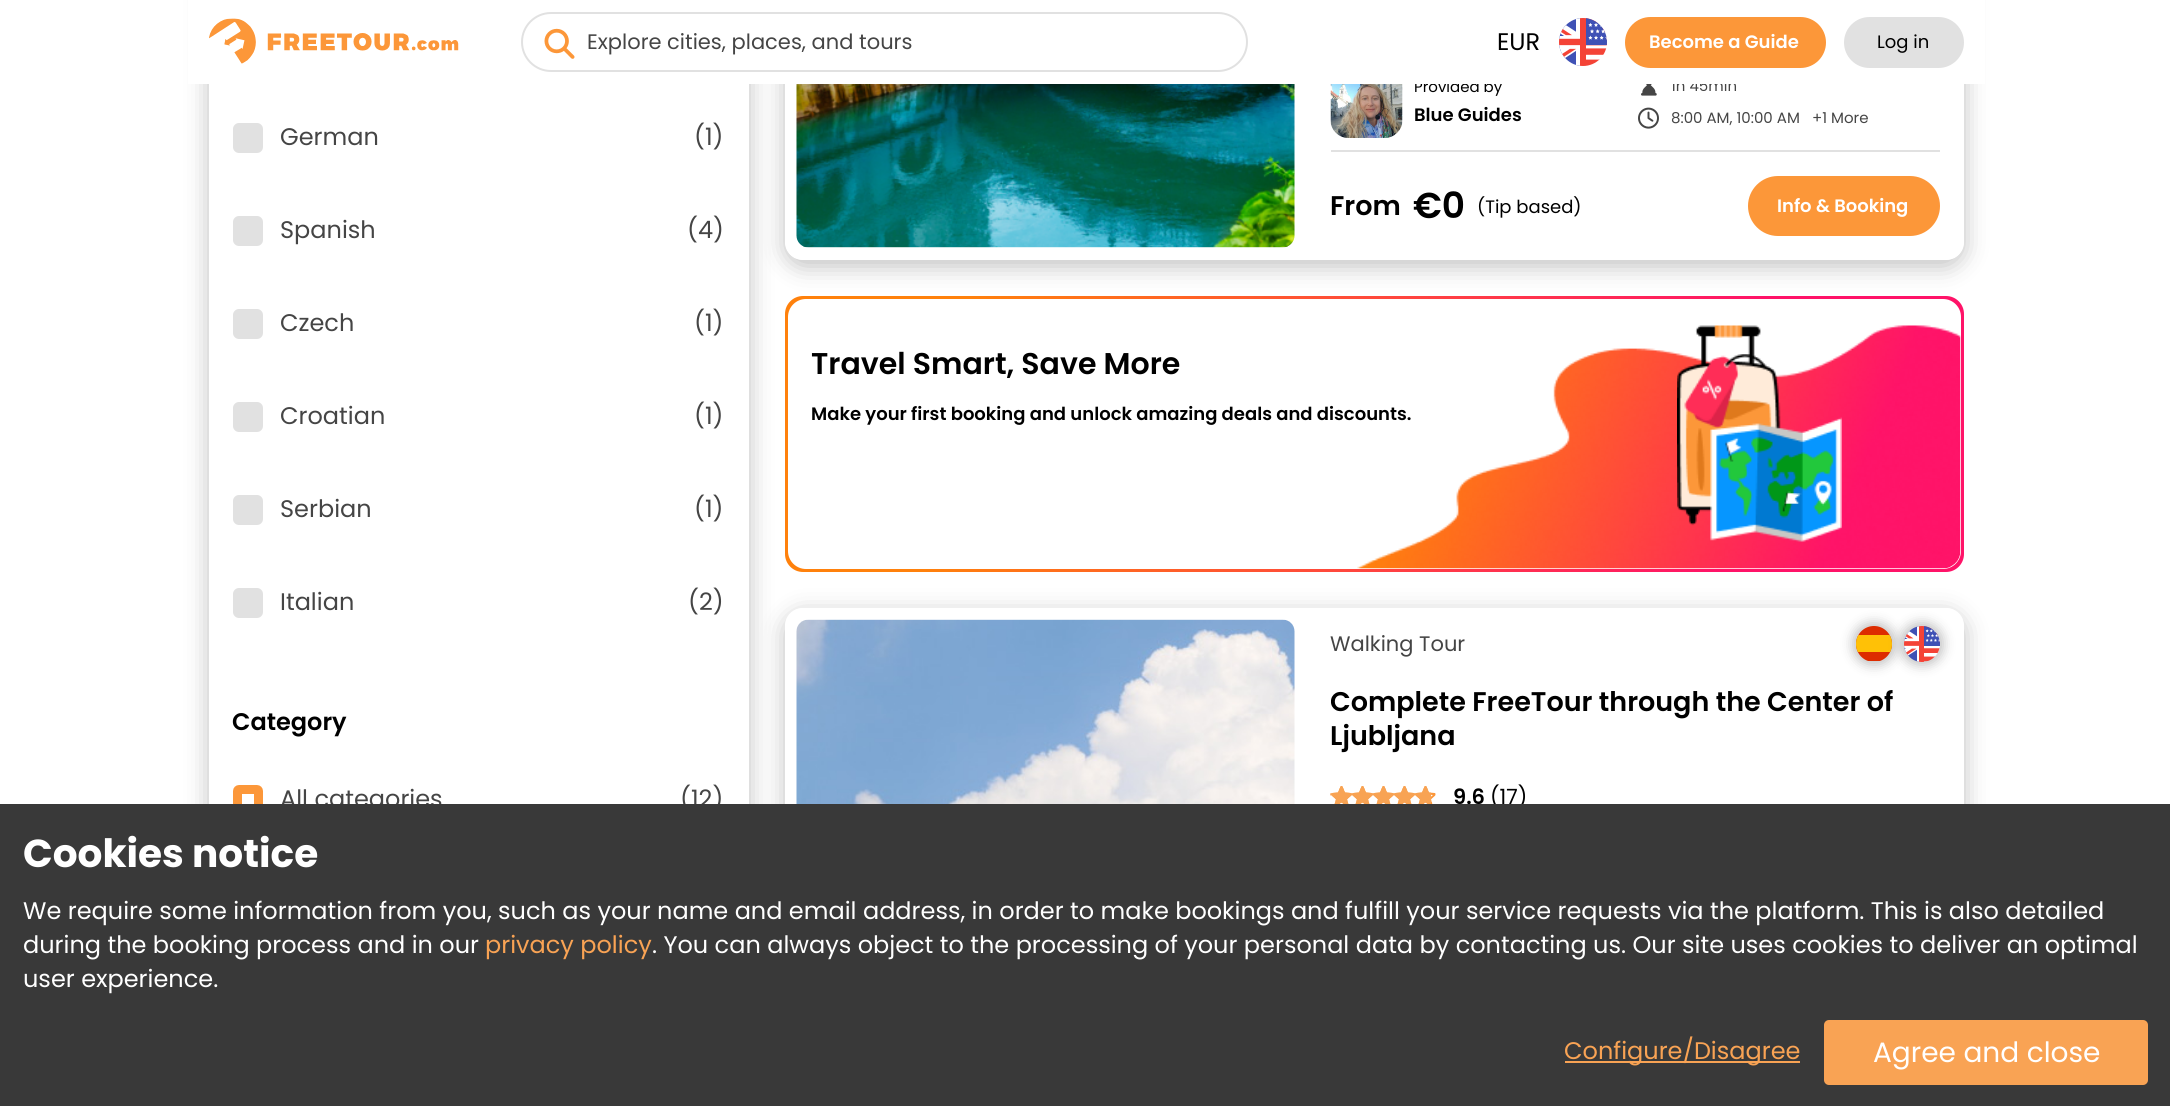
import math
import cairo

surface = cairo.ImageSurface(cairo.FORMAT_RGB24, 2170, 1106)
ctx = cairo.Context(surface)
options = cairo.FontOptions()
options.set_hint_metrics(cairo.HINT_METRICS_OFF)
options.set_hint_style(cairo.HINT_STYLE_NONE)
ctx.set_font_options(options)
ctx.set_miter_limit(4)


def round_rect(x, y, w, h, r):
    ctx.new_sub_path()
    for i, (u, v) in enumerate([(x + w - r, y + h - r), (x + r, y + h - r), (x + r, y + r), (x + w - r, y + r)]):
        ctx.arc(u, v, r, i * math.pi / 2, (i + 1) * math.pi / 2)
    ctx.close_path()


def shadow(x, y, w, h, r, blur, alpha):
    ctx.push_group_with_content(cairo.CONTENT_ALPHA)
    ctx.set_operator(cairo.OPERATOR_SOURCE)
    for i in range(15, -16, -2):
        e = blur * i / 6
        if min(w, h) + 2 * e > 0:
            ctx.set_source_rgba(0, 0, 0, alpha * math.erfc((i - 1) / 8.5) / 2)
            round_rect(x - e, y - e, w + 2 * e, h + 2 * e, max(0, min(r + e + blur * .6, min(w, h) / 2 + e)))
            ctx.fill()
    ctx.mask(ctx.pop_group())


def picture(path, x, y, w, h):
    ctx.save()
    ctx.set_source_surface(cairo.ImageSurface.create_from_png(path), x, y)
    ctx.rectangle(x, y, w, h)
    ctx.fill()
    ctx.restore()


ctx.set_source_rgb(1, 1, 1)
ctx.paint()
ctx.save()
ctx.set_fill_rule(cairo.FILL_RULE_EVEN_ODD)
ctx.new_path()
ctx.move_to(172, 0)
ctx.line_to(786, 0)
ctx.line_to(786, 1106)
ctx.line_to(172, 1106)
ctx.close_path()
ctx.move_to(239, -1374)
ctx.line_to(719, -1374)
ctx.curve_to(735.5, -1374, 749, -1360.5, 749, -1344)
ctx.line_to(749, 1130)
ctx.curve_to(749, 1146.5, 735.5, 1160, 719, 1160)
ctx.line_to(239, 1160)
ctx.curve_to(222.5, 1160, 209, 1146.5, 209, 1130)
ctx.line_to(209, -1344)
ctx.curve_to(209, -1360.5, 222.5, -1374, 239, -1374)
ctx.close_path()
ctx.clip()
ctx.set_source_rgb(0, 0, 0)
shadow(209, -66, 540, 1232, 30, 12, 0.25)
ctx.restore()
ctx.save()
ctx.set_fill_rule(cairo.FILL_RULE_EVEN_ODD)
ctx.new_path()
ctx.move_to(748, 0)
ctx.line_to(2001, 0)
ctx.line_to(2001, 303)
ctx.line_to(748, 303)
ctx.close_path()
ctx.move_to(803, -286)
ctx.line_to(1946, -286)
ctx.curve_to(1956, -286, 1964, -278, 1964, -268)
ctx.line_to(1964, 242)
ctx.curve_to(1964, 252, 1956, 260, 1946, 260)
ctx.line_to(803, 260)
ctx.curve_to(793, 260, 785, 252, 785, 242)
ctx.line_to(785, -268)
ctx.curve_to(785, -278, 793, -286, 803, -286)
ctx.close_path()
ctx.clip()
ctx.set_source_rgb(0, 0, 0)
shadow(785, -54, 1179, 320, 18, 12, 0.25)
ctx.restore()
ctx.select_font_face("Poppins")
ctx.set_font_size(15)
ctx.set_source_rgb(0, 0, 0)
ctx.move_to(1414, 92)
ctx.show_text("Provided by")
ctx.set_source_rgb(0.271, 0.271, 0.271)
ctx.move_to(1671, 91)
ctx.show_text("1h 45min")
ctx.set_source_rgb(1, 1, 1)
ctx.rectangle(188, 0, 1797, 84)
ctx.fill()
picture("img1.png", 209, 18, 250, 46)
round_rect(522, 13, 725, 58, 29)
ctx.set_source_rgb(0.882, 0.882, 0.882)
ctx.stroke()
picture("img2.png", 544, 28, 31, 31)
ctx.set_font_size(21)
ctx.set_source_rgb(0.271, 0.271, 0.271)
ctx.move_to(587, 49)
ctx.show_text("Explore cities, places, and tours")
ctx.set_font_size(24)
ctx.set_source_rgb(0, 0, 0)
ctx.move_to(1497, 50)
ctx.show_text("EUR")
picture("img3.png", 1559, 18, 48, 48)
ctx.set_source_rgb(0.988, 0.592, 0.224)
round_rect(1626, 18, 199, 49, 24.5)
ctx.fill_preserve()
ctx.stroke()
ctx.select_font_face("Poppins SemiBold")
ctx.set_font_size(18)
ctx.set_source_rgb(1, 1, 1)
ctx.move_to(1649, 48)
ctx.show_text("Become a Guide")
ctx.set_source_rgb(0.882, 0.882, 0.882)
round_rect(1845, 18, 118, 49, 24.5)
ctx.fill_preserve()
ctx.stroke()
ctx.select_font_face("Poppins")
ctx.set_source_rgb(0, 0, 0)
ctx.move_to(1877, 48)
ctx.show_text("Log in")
ctx.set_source_rgb(0.882, 0.882, 0.882)
round_rect(234, 124, 28, 28, 5)
ctx.fill_preserve()
ctx.stroke()
ctx.set_font_size(24)
ctx.set_source_rgb(0.271, 0.271, 0.271)
ctx.move_to(280, 145)
ctx.show_text("German")
ctx.move_to(694, 145)
ctx.show_text("(1)")
ctx.set_source_rgb(0.882, 0.882, 0.882)
round_rect(234, 217, 28, 28, 5)
ctx.fill_preserve()
ctx.stroke()
ctx.set_source_rgb(0.271, 0.271, 0.271)
ctx.move_to(280, 238)
ctx.show_text("Spanish")
ctx.move_to(687, 238)
ctx.show_text("(4)")
ctx.set_source_rgb(0.882, 0.882, 0.882)
round_rect(234, 310, 28, 28, 5)
ctx.fill_preserve()
ctx.stroke()
ctx.set_source_rgb(0.271, 0.271, 0.271)
ctx.move_to(280, 331)
ctx.show_text("Czech")
ctx.move_to(694, 331)
ctx.show_text("(1)")
ctx.set_source_rgb(0.882, 0.882, 0.882)
round_rect(234, 403, 28, 28, 5)
ctx.fill_preserve()
ctx.stroke()
ctx.set_source_rgb(0.271, 0.271, 0.271)
ctx.move_to(280, 424)
ctx.show_text("Croatian")
ctx.move_to(694, 424)
ctx.show_text("(1)")
ctx.set_source_rgb(0.882, 0.882, 0.882)
round_rect(234, 496, 28, 28, 5)
ctx.fill_preserve()
ctx.stroke()
ctx.set_source_rgb(0.271, 0.271, 0.271)
ctx.move_to(280, 517)
ctx.show_text("Serbian")
ctx.move_to(694, 517)
ctx.show_text("(1)")
ctx.set_source_rgb(0.882, 0.882, 0.882)
round_rect(234, 589, 28, 28, 5)
ctx.fill_preserve()
ctx.stroke()
ctx.set_source_rgb(0.271, 0.271, 0.271)
ctx.move_to(280, 610)
ctx.show_text("Italian")
ctx.move_to(688, 610)
ctx.show_text("(2)")
ctx.select_font_face("Poppins SemiBold")
ctx.set_source_rgb(0, 0, 0)
ctx.move_to(232, 730)
ctx.show_text("Category")
round_rect(237.5, 789.5, 21, 21, 1.5)
ctx.set_source_rgb(0.988, 0.592, 0.224)
ctx.set_line_width(9)
ctx.stroke()
ctx.select_font_face("Poppins")
ctx.set_source_rgb(0.271, 0.271, 0.271)
ctx.move_to(280, 807)
ctx.show_text("All categories")
ctx.move_to(680, 807)
ctx.show_text("(12)")
picture("img4.png", 796, 84, 499, 164)
ctx.set_source_rgb(0.882, 0.882, 0.882)
ctx.rectangle(1331, 150, 609, 2)
ctx.fill()
picture("img5.png", 1330, 84, 73, 54)
ctx.select_font_face("Poppins SemiBold")
ctx.set_font_size(18)
ctx.set_source_rgb(0, 0, 0)
ctx.move_to(1414, 121)
ctx.show_text("Blue Guides")
picture("img6.png", 1641, 84, 16, 12)
picture("img7.png", 1638, 107, 21, 22)
ctx.select_font_face("Poppins")
ctx.set_font_size(15)
ctx.set_source_rgb(0.271, 0.271, 0.271)
ctx.move_to(1671, 123)
ctx.show_text("8:00 AM, 10:00 AM")
ctx.move_to(1812, 123)
ctx.show_text("+1 More")
ctx.select_font_face("Poppins SemiBold")
ctx.set_font_size(27)
ctx.set_source_rgb(0, 0, 0)
ctx.move_to(1330, 215)
ctx.show_text("From")
ctx.set_font_size(36)
ctx.move_to(1413, 218)
ctx.show_text("€0")
ctx.select_font_face("Poppins")
ctx.set_font_size(18)
ctx.move_to(1477, 213)
ctx.show_text("(Tip based)")
ctx.set_source_rgb(0.988, 0.592, 0.224)
round_rect(1749, 177, 190, 58, 29)
ctx.fill_preserve()
ctx.set_line_width(2)
ctx.stroke()
ctx.select_font_face("Poppins SemiBold")
ctx.set_source_rgb(1, 1, 1)
ctx.move_to(1777, 212)
ctx.show_text("Info & Booking")
gradient = cairo.LinearGradient(778, 334, 1970, 533)
gradient.add_color_stop_rgba(0.15, 1, 0.506, 0.047, 1)
gradient.add_color_stop_rgba(0.8, 1, 0.075, 0.408, 1)
ctx.set_source(gradient)
round_rect(785, 296, 1179, 276, 18)
ctx.fill()
ctx.set_source_rgb(1, 1, 1)
round_rect(788, 299, 1173, 270, 18)
ctx.fill()
picture("img8.png", 1357, 325, 604, 244)
ctx.set_font_size(30)
ctx.set_source_rgb(0, 0, 0)
ctx.move_to(811, 374)
ctx.show_text("Travel Smart, Save More")
picture("img9.png", 1677, 325, 165, 217)
ctx.set_font_size(18)
ctx.move_to(811, 420)
ctx.show_text("Make your first booking and unlock amazing deals and discounts.")
ctx.save()
ctx.set_fill_rule(cairo.FILL_RULE_EVEN_ODD)
ctx.new_path()
ctx.move_to(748, 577)
ctx.line_to(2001, 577)
ctx.line_to(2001, 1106)
ctx.line_to(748, 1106)
ctx.close_path()
ctx.move_to(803, 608)
ctx.line_to(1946, 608)
ctx.curve_to(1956, 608, 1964, 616, 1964, 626)
ctx.line_to(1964, 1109)
ctx.curve_to(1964, 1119, 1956, 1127, 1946, 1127)
ctx.line_to(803, 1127)
ctx.curve_to(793, 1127, 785, 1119, 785, 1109)
ctx.line_to(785, 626)
ctx.curve_to(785, 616, 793, 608, 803, 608)
ctx.close_path()
ctx.clip()
ctx.set_source_rgb(0, 0, 0)
shadow(785, 614, 1179, 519, 18, 12, 0.25)
ctx.restore()
picture("img10.png", 796, 619, 499, 185)
ctx.select_font_face("Poppins")
ctx.set_font_size(21)
ctx.set_source_rgb(0.271, 0.271, 0.271)
ctx.move_to(1330, 651)
ctx.show_text("Walking Tour")
ctx.set_source_rgb(0, 0, 0)
shadow(1853, 623, 42, 42, 21, 6, 0.25)
ctx.save()
round_rect(1856, 626, 36, 36, 18)
ctx.clip()
ctx.set_source_rgb(0.867, 0.173, 0)
ctx.new_path()
ctx.move_to(1874, 626)
ctx.curve_to(1884, 626, 1892, 634, 1892, 644)
ctx.line_to(1892, 661)
ctx.line_to(1856, 661)
ctx.line_to(1856, 644)
ctx.curve_to(1856, 634, 1864, 626, 1874, 626)
ctx.close_path()
ctx.fill()
ctx.set_source_rgb(1, 0.757, 0.027)
ctx.rectangle(1856, 635, 36, 17)
ctx.fill()
ctx.restore()
shadow(1901, 623, 42, 42, 21, 6, 0.25)
picture("img11.png", 1904, 626, 36, 36)
ctx.save()
ctx.rectangle(1331, 686, 609, 67)
ctx.clip()
ctx.select_font_face("Poppins SemiBold")
ctx.set_font_size(27)
ctx.set_source_rgb(0, 0, 0)
ctx.move_to(1330, 711)
ctx.show_text("Complete FreeTour through the Center of")
ctx.restore()
ctx.select_font_face("Poppins SemiBold")
ctx.set_font_size(27)
ctx.set_source_rgb(0, 0, 0)
ctx.move_to(1330, 745)
ctx.show_text("Ljubljana")
picture("img12.png", 1330, 786, 106, 18)
picture("img13.png", 1330, 786, 101, 18)
ctx.set_font_size(21)
ctx.move_to(1453, 804)
ctx.show_text("9.6")
ctx.select_font_face("Poppins")
ctx.move_to(1490, 804)
ctx.show_text("(17)")
ctx.set_source_rgb(0.224, 0.224, 0.224)
ctx.rectangle(0, 804, 2170, 302)
ctx.fill()
ctx.select_font_face("Poppins", cairo.FONT_SLANT_NORMAL, cairo.FONT_WEIGHT_BOLD)
ctx.set_font_size(39)
ctx.set_source_rgb(1, 1, 1)
ctx.move_to(23, 867)
ctx.show_text("Cookies notice")
ctx.select_font_face("Poppins")
ctx.set_font_size(24)
ctx.move_to(23, 919)
ctx.show_text("We require some information from you, such as your name and email address, in order to make bookings and fulfill your service requests via the platform. This is also detailed")
ctx.move_to(23, 953)
ctx.show_text("during the booking process and in our")
ctx.set_source_rgb(0.973, 0.639, 0.329)
ctx.move_to(485, 953)
ctx.show_text("privacy policy")
ctx.set_source_rgb(1, 1, 1)
ctx.move_to(652, 953)
ctx.show_text(". You can always object to the processing of your personal data by contacting us. Our site uses cookies to deliver an optimal")
ctx.move_to(23, 987)
ctx.show_text("user experience.")
ctx.set_source_rgb(0.973, 0.639, 0.329)
ctx.rectangle(1565, 1061, 235, 2)
ctx.fill()
ctx.move_to(1564, 1059)
ctx.show_text("Configure/Disagree")
round_rect(1824, 1020, 324, 65, 5)
ctx.fill()
ctx.set_font_size(28)
ctx.set_source_rgb(1, 1, 1)
ctx.move_to(1873, 1062)
ctx.show_text("Agree and close")
surface.write_to_png("page.png")
